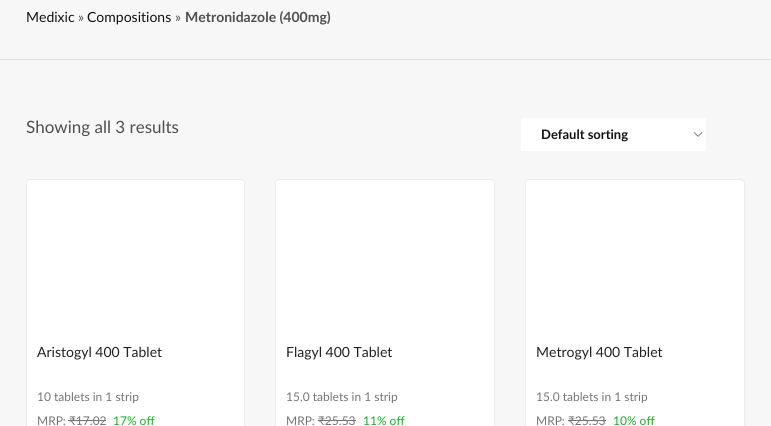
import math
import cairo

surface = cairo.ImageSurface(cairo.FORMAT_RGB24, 771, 426)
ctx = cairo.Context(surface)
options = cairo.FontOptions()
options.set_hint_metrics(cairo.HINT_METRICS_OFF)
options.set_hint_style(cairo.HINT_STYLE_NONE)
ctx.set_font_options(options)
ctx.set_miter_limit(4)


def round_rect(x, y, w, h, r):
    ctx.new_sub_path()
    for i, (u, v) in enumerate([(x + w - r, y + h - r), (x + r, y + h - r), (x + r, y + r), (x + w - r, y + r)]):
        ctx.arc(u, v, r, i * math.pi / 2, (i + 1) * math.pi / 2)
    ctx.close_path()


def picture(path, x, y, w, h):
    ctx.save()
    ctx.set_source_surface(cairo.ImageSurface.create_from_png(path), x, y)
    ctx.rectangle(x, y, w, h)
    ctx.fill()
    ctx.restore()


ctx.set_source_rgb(0.965, 0.965, 0.965)
ctx.paint()
ctx.set_source_rgb(0.882, 0.882, 0.882)
ctx.rectangle(0, 59, 771, 1)
ctx.fill()
ctx.select_font_face("Lato")
ctx.set_font_size(14)
ctx.set_source_rgb(0.071, 0.071, 0.071)
ctx.move_to(26, 22)
ctx.show_text("Medixic")
ctx.set_source_rgb(0.31, 0.31, 0.31)
ctx.move_to(78, 22)
ctx.show_text("»")
ctx.set_source_rgb(0.071, 0.071, 0.071)
ctx.move_to(87, 22)
ctx.show_text("Compositions")
ctx.set_source_rgb(0.31, 0.31, 0.31)
ctx.move_to(175, 22)
ctx.show_text("»")
ctx.select_font_face("Lato", cairo.FONT_SLANT_NORMAL, cairo.FONT_WEIGHT_BOLD)
ctx.move_to(185, 22)
ctx.show_text("Metronidazole (400mg)")
ctx.select_font_face("Lato")
ctx.set_font_size(17)
ctx.move_to(26, 133)
ctx.show_text("Showing all 3 results")
ctx.set_source_rgb(1, 1, 1)
ctx.rectangle(521, 118, 185, 33)
ctx.fill()
picture("img1.png", 693, 132, 10, 5)
ctx.select_font_face("Lato", cairo.FONT_SLANT_NORMAL, cairo.FONT_WEIGHT_BOLD)
ctx.set_font_size(13)
ctx.set_source_rgb(0.071, 0.071, 0.071)
ctx.move_to(541, 139)
ctx.show_text("Default sorting")
ctx.set_source_rgb(1, 1, 1)
round_rect(26.5, 179.5, 218, 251, 3.5)
ctx.fill_preserve()
ctx.set_source_rgb(0.922, 0.922, 0.922)
ctx.set_line_width(1)
ctx.stroke()
ctx.select_font_face("Lato")
ctx.set_font_size(14)
ctx.set_source_rgb(0.129, 0.129, 0.129)
ctx.move_to(37, 357)
ctx.show_text("Aristogyl 400 Tablet")
ctx.set_font_size(12)
ctx.set_source_rgb(0.459, 0.459, 0.459)
ctx.move_to(37, 401)
ctx.show_text("10 tablets in 1 strip")
ctx.move_to(37, 425)
ctx.show_text("MRP: ₹17.02")
ctx.rectangle(68, 420, 38, 1)
ctx.fill()
ctx.set_source_rgb(0.102, 0.671, 0.165)
ctx.move_to(113, 425)
ctx.show_text("17% off")
ctx.set_source_rgb(1, 1, 1)
round_rect(275.5, 179.5, 219, 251, 3.5)
ctx.fill_preserve()
ctx.set_source_rgb(0.922, 0.922, 0.922)
ctx.stroke()
ctx.set_font_size(14)
ctx.set_source_rgb(0.129, 0.129, 0.129)
ctx.move_to(286, 357)
ctx.show_text("Flagyl 400 Tablet")
ctx.set_font_size(12)
ctx.set_source_rgb(0.459, 0.459, 0.459)
ctx.move_to(286, 401)
ctx.show_text("15.0 tablets in 1 strip")
ctx.move_to(286, 425)
ctx.show_text("MRP: ₹25.53")
ctx.rectangle(318, 420, 38, 1)
ctx.fill()
ctx.set_source_rgb(0.102, 0.671, 0.165)
ctx.move_to(363, 425)
ctx.show_text("11% off")
ctx.set_source_rgb(1, 1, 1)
round_rect(525.5, 179.5, 219, 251, 3.5)
ctx.fill_preserve()
ctx.set_source_rgb(0.922, 0.922, 0.922)
ctx.stroke()
ctx.set_font_size(14)
ctx.set_source_rgb(0.129, 0.129, 0.129)
ctx.move_to(536, 357)
ctx.show_text("Metrogyl 400 Tablet")
ctx.set_font_size(12)
ctx.set_source_rgb(0.459, 0.459, 0.459)
ctx.move_to(536, 401)
ctx.show_text("15.0 tablets in 1 strip")
ctx.move_to(536, 425)
ctx.show_text("MRP: ₹25.53")
ctx.rectangle(568, 420, 38, 1)
ctx.fill()
ctx.set_source_rgb(0.102, 0.671, 0.165)
ctx.move_to(613, 425)
ctx.show_text("10% off")
surface.write_to_png("page.png")
